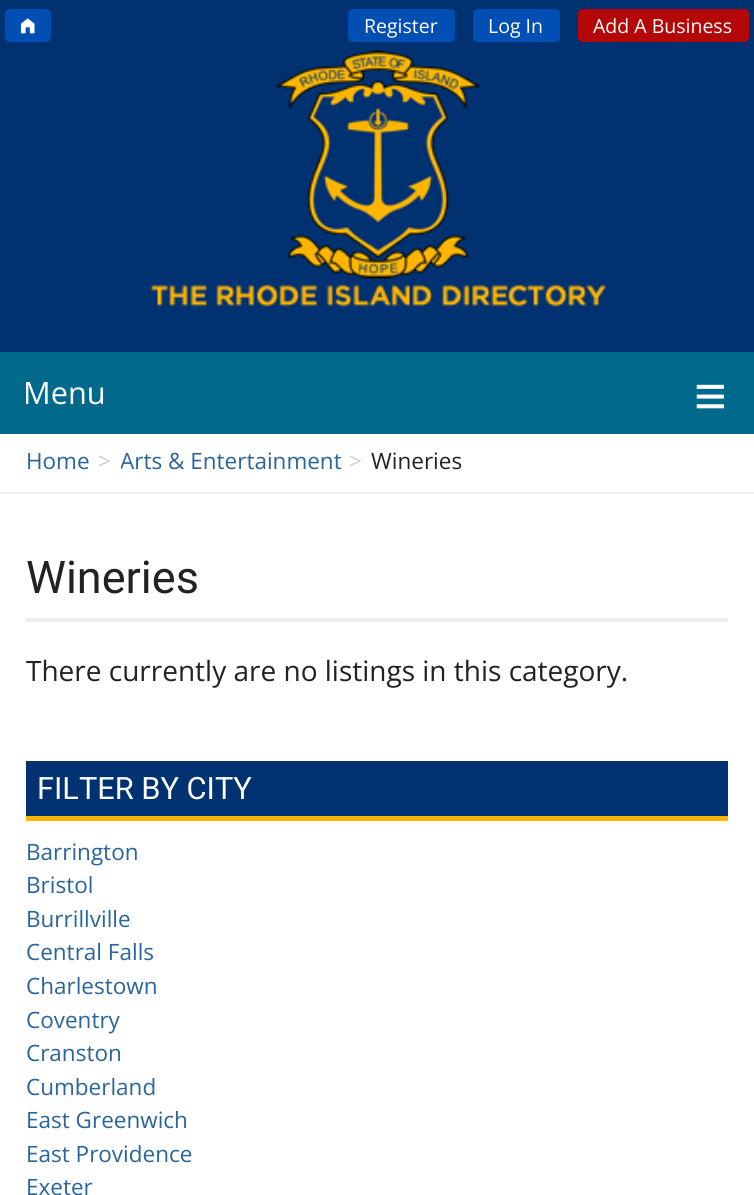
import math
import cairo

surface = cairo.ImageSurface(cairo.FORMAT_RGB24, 754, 1195)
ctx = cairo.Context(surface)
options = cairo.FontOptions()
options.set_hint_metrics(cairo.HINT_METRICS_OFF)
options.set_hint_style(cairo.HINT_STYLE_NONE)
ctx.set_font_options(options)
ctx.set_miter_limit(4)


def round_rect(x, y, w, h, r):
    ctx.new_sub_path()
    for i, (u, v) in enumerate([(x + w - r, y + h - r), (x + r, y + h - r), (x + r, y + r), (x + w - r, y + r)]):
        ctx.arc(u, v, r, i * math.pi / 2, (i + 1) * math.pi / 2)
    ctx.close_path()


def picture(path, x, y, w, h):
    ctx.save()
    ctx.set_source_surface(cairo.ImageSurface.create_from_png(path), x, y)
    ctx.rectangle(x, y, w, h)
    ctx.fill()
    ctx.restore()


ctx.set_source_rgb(0, 0.196, 0.443)
ctx.paint()
ctx.set_source_rgb(0.004, 0.31, 0.71)
round_rect(5, 9, 46, 33, 5)
ctx.fill()
picture("img1.png", 21, 18, 14, 16)
round_rect(348, 9, 107, 33, 5)
ctx.fill()
ctx.select_font_face("Open Sans")
ctx.set_font_size(19.5)
ctx.set_source_rgb(1, 1, 1)
ctx.move_to(364, 33)
ctx.show_text("Register")
ctx.set_source_rgb(0.004, 0.31, 0.71)
round_rect(473, 9, 87, 33, 5)
ctx.fill()
ctx.set_source_rgb(1, 1, 1)
ctx.move_to(488, 33)
ctx.show_text("Log In")
ctx.set_source_rgb(0.706, 0.031, 0.031)
round_rect(578, 9, 171, 33, 5)
ctx.fill()
ctx.set_source_rgb(1, 1, 1)
ctx.move_to(593, 33)
ctx.show_text("Add A Business")
picture("img2.png", 150, 50, 456, 257)
ctx.set_source_rgb(0, 0.412, 0.549)
ctx.rectangle(0, 352, 754, 82)
ctx.fill()
ctx.set_font_size(30.75)
ctx.set_source_rgb(1, 1, 1)
ctx.move_to(23, 404)
ctx.show_text("Menu")
ctx.select_font_face("Liberation Sans")
ctx.set_font_size(56)
ctx.move_to(694, 415)
ctx.show_text("≡")
ctx.rectangle(0, 434, 754, 58)
ctx.fill()
ctx.set_source_rgb(0.933, 0.933, 0.933)
ctx.rectangle(0, 492, 754, 2)
ctx.fill()
ctx.select_font_face("Open Sans")
ctx.set_font_size(22.5)
ctx.set_source_rgb(0.161, 0.392, 0.616)
ctx.move_to(26, 469)
ctx.show_text("Home")
ctx.set_source_rgb(0.8, 0.8, 0.8)
ctx.move_to(98, 469)
ctx.show_text(">")
ctx.save()
ctx.rectangle(121, 443, 250, 37)
ctx.clip()
ctx.set_source_rgb(0.161, 0.392, 0.616)
ctx.move_to(120, 469)
ctx.show_text("Arts & Entertainment")
ctx.restore()
ctx.move_to(349, 469)
ctx.show_text(">")
ctx.set_source_rgb(0.133, 0.133, 0.133)
ctx.move_to(371, 469)
ctx.show_text("Wineries")
ctx.set_source_rgb(1, 1, 1)
ctx.rectangle(0, 494, 754, 701)
ctx.fill()
ctx.set_source_rgb(0.933, 0.933, 0.933)
ctx.rectangle(26, 618, 702, 4)
ctx.fill()
ctx.select_font_face("Roboto")
ctx.set_font_size(45)
ctx.set_source_rgb(0.133, 0.133, 0.133)
ctx.move_to(26, 593)
ctx.show_text("Wineries")
ctx.select_font_face("Open Sans")
ctx.set_font_size(28)
ctx.move_to(26, 681)
ctx.show_text("There currently are no listings in this category.")
ctx.set_source_rgb(0, 0.196, 0.443)
ctx.rectangle(26, 761, 702, 55)
ctx.fill()
ctx.set_source_rgb(1, 0.706, 0)
ctx.rectangle(26, 816, 702, 5)
ctx.fill()
ctx.select_font_face("Roboto")
ctx.set_font_size(30.75)
ctx.set_source_rgb(1, 1, 1)
ctx.move_to(37, 799)
ctx.show_text("FILTER BY CITY")
ctx.select_font_face("Open Sans")
ctx.set_font_size(22.5)
ctx.set_source_rgb(0.161, 0.392, 0.616)
ctx.move_to(26, 860)
ctx.show_text("Barrington")
ctx.move_to(26, 893)
ctx.show_text("Bristol")
ctx.move_to(26, 927)
ctx.show_text("Burrillville")
ctx.move_to(26, 960)
ctx.show_text("Central Falls")
ctx.move_to(26, 994)
ctx.show_text("Charlestown")
ctx.move_to(26, 1028)
ctx.show_text("Coventry")
ctx.move_to(26, 1061)
ctx.show_text("Cranston")
ctx.move_to(26, 1095)
ctx.show_text("Cumberland")
ctx.move_to(26, 1128)
ctx.show_text("East Greenwich")
ctx.move_to(26, 1162)
ctx.show_text("East Providence")
ctx.move_to(26, 1195)
ctx.show_text("Exeter")
surface.write_to_png("page.png")
